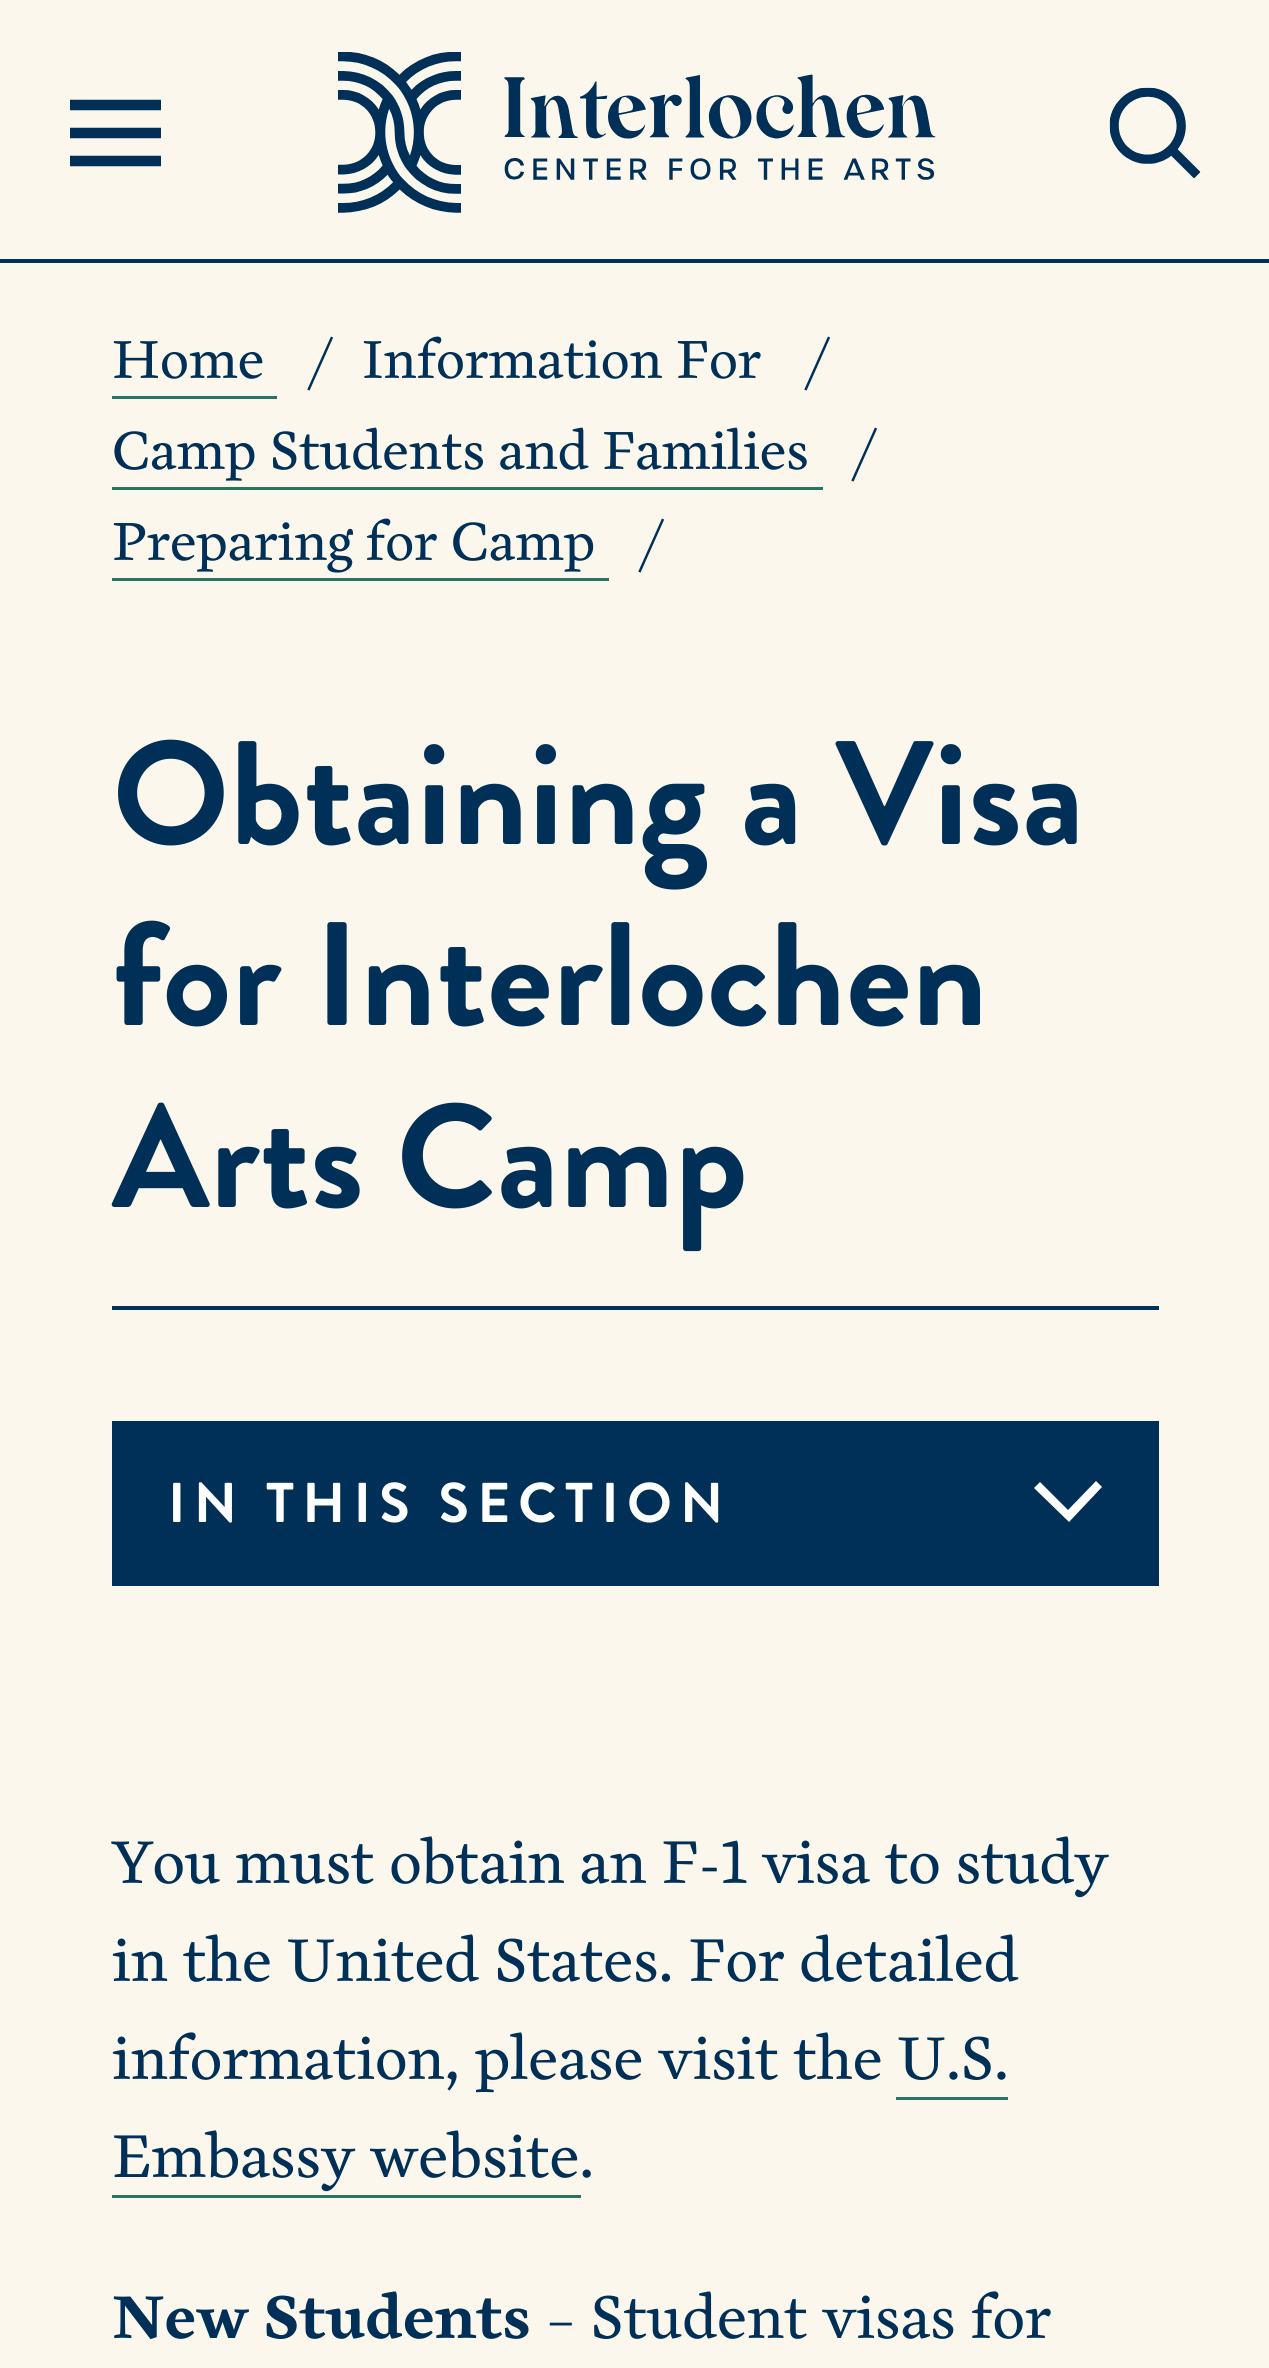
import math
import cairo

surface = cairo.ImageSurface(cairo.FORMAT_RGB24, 1269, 2368)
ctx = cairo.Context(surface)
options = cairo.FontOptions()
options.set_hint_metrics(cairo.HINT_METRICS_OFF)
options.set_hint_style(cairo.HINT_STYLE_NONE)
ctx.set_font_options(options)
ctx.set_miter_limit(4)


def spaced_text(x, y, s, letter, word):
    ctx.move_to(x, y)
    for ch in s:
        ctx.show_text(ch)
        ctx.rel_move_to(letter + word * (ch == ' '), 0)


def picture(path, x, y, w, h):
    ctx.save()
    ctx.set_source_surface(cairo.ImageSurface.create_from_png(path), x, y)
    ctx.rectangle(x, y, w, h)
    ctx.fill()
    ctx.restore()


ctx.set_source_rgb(0.984, 0.965, 0.925)
ctx.paint()
ctx.set_source_rgb(0, 0.188, 0.341)
ctx.rectangle(0, 259, 1269, 4)
ctx.fill()
picture("img1.png", 338, 52, 598, 161)
picture("img2.png", 70, 99, 91, 68)
picture("img3.png", 1109, 87, 92, 92)
ctx.select_font_face("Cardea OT")
ctx.set_font_size(56)
ctx.move_to(112, 378)
ctx.show_text("Home")
ctx.set_source_rgb(0.165, 0.451, 0.38)
ctx.rectangle(112, 396, 165, 3)
ctx.fill()
ctx.set_source_rgb(0, 0.188, 0.341)
ctx.move_to(306, 378)
ctx.show_text("/")
ctx.move_to(362, 378)
ctx.show_text("Information For")
ctx.move_to(803, 378)
ctx.show_text("/")
ctx.move_to(112, 469)
ctx.show_text("Camp Students and Families")
ctx.set_source_rgb(0.165, 0.451, 0.38)
ctx.rectangle(112, 487, 711, 3)
ctx.fill()
ctx.set_source_rgb(0, 0.188, 0.341)
ctx.move_to(850, 469)
ctx.show_text("/")
ctx.move_to(112, 560)
ctx.show_text("Preparing for Camp")
ctx.set_source_rgb(0.165, 0.451, 0.38)
ctx.rectangle(112, 578, 497, 3)
ctx.fill()
ctx.set_source_rgb(0, 0.188, 0.341)
ctx.move_to(637, 560)
ctx.show_text("/")
ctx.select_font_face("Brandon Grotesque", cairo.FONT_SLANT_NORMAL, cairo.FONT_WEIGHT_BOLD)
ctx.set_font_size(147)
ctx.move_to(112, 844)
ctx.show_text("Obtaining a Visa")
ctx.move_to(112, 1025)
ctx.show_text("for Interlochen")
ctx.move_to(112, 1207)
ctx.show_text("Arts Camp")
ctx.rectangle(112, 1306, 1047, 4)
ctx.fill()
ctx.rectangle(112, 1421, 1047, 165)
ctx.fill()
ctx.set_font_size(56)
ctx.set_source_rgb(1, 1, 1)
spaced_text(168, 1522, "IN THIS SECTION", 8.25, 0)
ctx.new_path()
ctx.move_to(1096, 1481)
ctx.line_to(1068, 1510)
ctx.line_to(1040, 1482)
ctx.line_to(1034, 1488)
ctx.line_to(1069, 1522)
ctx.line_to(1102, 1487)
ctx.close_path()
ctx.fill()
ctx.select_font_face("Cardea OT")
ctx.set_font_size(63)
ctx.set_source_rgb(0, 0.188, 0.341)
ctx.move_to(112, 1883)
ctx.show_text("You must obtain an F-1 visa to study")
ctx.move_to(112, 1981)
ctx.show_text("in the United States. For detailed")
ctx.move_to(112, 2079)
ctx.show_text("information, please visit the U.S.")
ctx.move_to(112, 2177)
ctx.show_text("Embassy website.")
ctx.set_source_rgb(0.165, 0.451, 0.38)
ctx.rectangle(896, 2097, 112, 3)
ctx.fill()
ctx.rectangle(112, 2195, 469, 3)
ctx.fill()
ctx.select_font_face("Cardea OT", cairo.FONT_SLANT_NORMAL, cairo.FONT_WEIGHT_BOLD)
ctx.set_source_rgb(0, 0.188, 0.341)
ctx.move_to(112, 2338)
ctx.show_text("New Students")
ctx.select_font_face("Cardea OT")
ctx.move_to(546, 2338)
ctx.show_text("– Student visas for")
surface.write_to_png("page.png")
